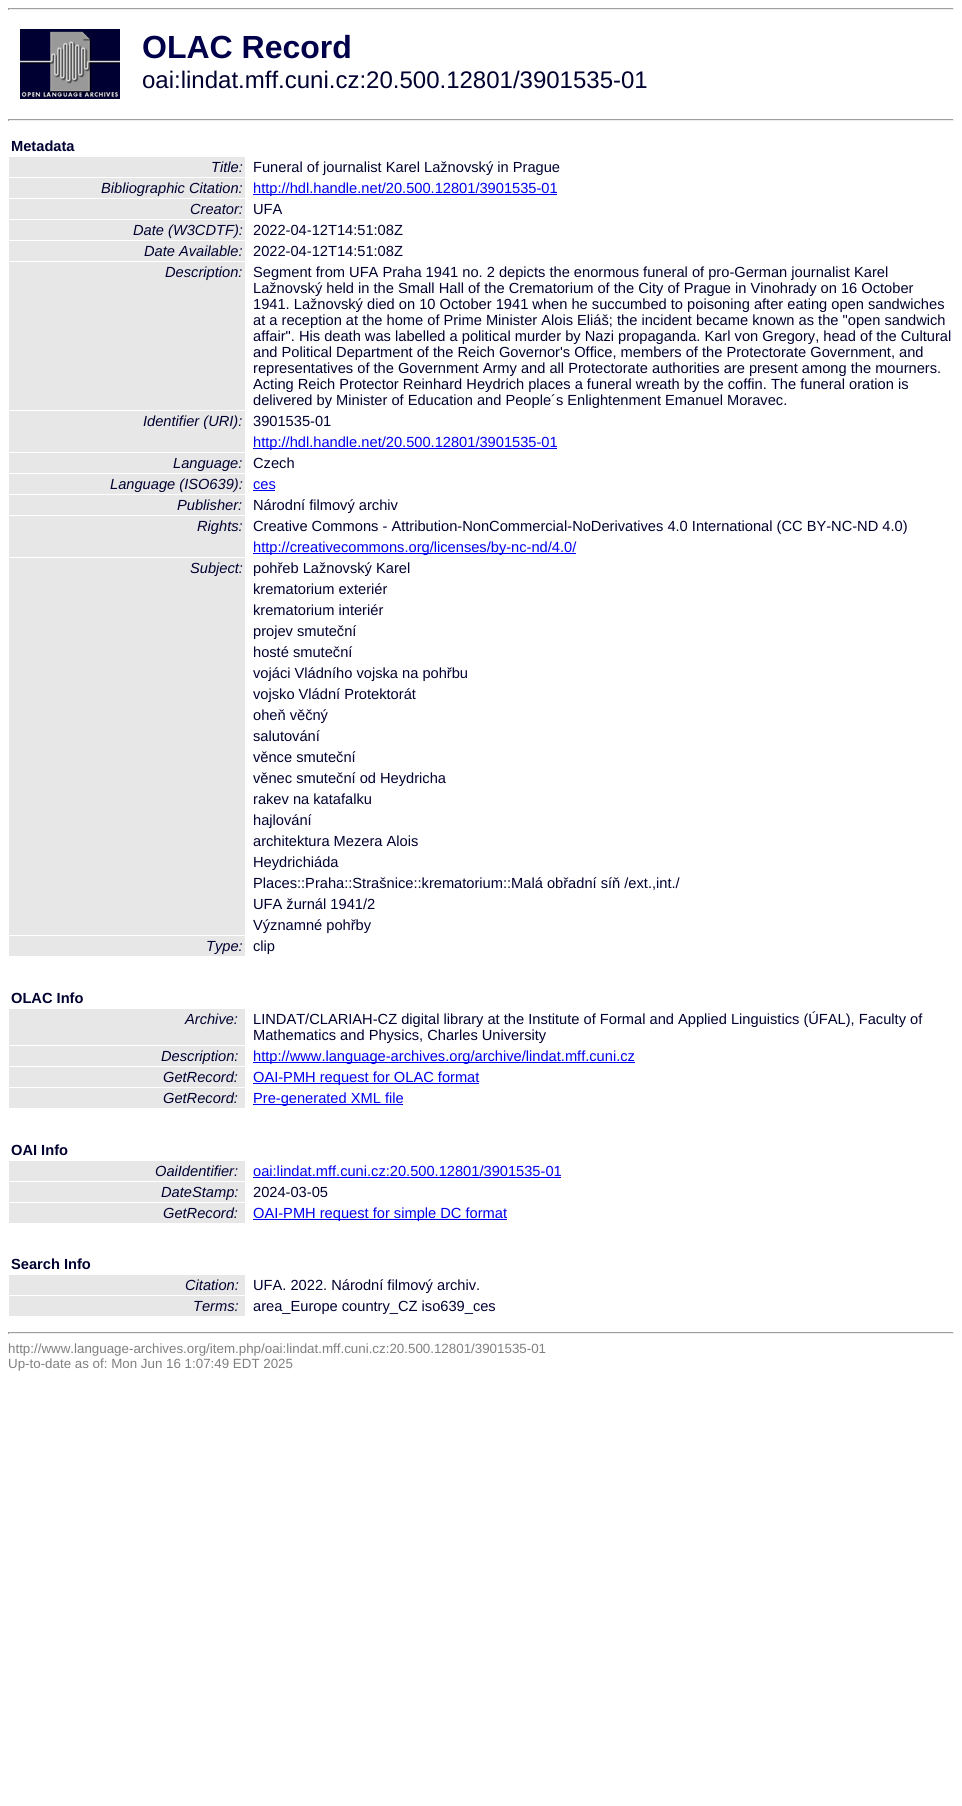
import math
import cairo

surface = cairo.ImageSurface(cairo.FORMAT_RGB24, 962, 1806)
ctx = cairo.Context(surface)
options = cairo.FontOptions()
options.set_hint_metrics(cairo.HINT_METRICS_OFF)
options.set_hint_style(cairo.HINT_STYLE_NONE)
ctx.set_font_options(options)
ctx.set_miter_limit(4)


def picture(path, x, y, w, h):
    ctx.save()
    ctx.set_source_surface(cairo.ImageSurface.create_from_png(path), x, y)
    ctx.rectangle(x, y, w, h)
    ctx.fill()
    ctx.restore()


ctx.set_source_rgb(1, 1, 1)
ctx.paint()
ctx.set_source_rgb(0.624, 0.624, 0.624)
ctx.rectangle(8, 8, 946, 1)
ctx.fill()
ctx.set_source_rgb(0.933, 0.933, 0.933)
ctx.rectangle(953, 8, 1, 2)
ctx.fill()
ctx.rectangle(8, 9, 946, 1)
ctx.fill()
ctx.set_source_rgb(0.624, 0.624, 0.624)
ctx.rectangle(8, 8, 1, 2)
ctx.fill()
picture("img1.png", 20, 29, 100, 70)
ctx.select_font_face("Liberation Sans", cairo.FONT_SLANT_NORMAL, cairo.FONT_WEIGHT_BOLD)
ctx.set_font_size(32)
ctx.set_source_rgb(0, 0, 0.29)
ctx.move_to(142, 58)
ctx.show_text("OLAC Record")
ctx.select_font_face("Liberation Sans")
ctx.set_font_size(24)
ctx.set_source_rgb(0, 0, 0.188)
ctx.move_to(142, 88)
ctx.show_text("oai:lindat.mff.cuni.cz:20.500.12801/3901535-01")
ctx.set_source_rgb(0.624, 0.624, 0.624)
ctx.rectangle(8, 119, 946, 1)
ctx.fill()
ctx.set_source_rgb(0.933, 0.933, 0.933)
ctx.rectangle(953, 119, 1, 2)
ctx.fill()
ctx.rectangle(8, 120, 946, 1)
ctx.fill()
ctx.set_source_rgb(0.624, 0.624, 0.624)
ctx.rectangle(8, 119, 1, 2)
ctx.fill()
ctx.select_font_face("Liberation Sans", cairo.FONT_SLANT_NORMAL, cairo.FONT_WEIGHT_BOLD)
ctx.set_font_size(14.65)
ctx.set_source_rgb(0, 0, 0.188)
ctx.move_to(11, 151)
ctx.show_text("Metadata")
ctx.set_source_rgb(0.906, 0.906, 0.906)
ctx.rectangle(9, 157, 236, 20)
ctx.fill()
ctx.select_font_face("Liberation Sans", cairo.FONT_SLANT_ITALIC)
ctx.set_source_rgb(0, 0, 0.188)
ctx.move_to(211, 172)
ctx.show_text("Title:")
ctx.select_font_face("Liberation Sans")
ctx.move_to(253, 172)
ctx.show_text("Funeral of journalist Karel Lažnovský in Prague")
ctx.set_source_rgb(0.906, 0.906, 0.906)
ctx.rectangle(9, 178, 236, 20)
ctx.fill()
ctx.select_font_face("Liberation Sans", cairo.FONT_SLANT_ITALIC)
ctx.set_source_rgb(0, 0, 0.188)
ctx.move_to(101, 193)
ctx.show_text("Bibliographic Citation:")
ctx.set_source_rgb(0, 0, 0.933)
ctx.rectangle(253, 194, 304, 1)
ctx.fill()
ctx.select_font_face("Liberation Sans")
ctx.move_to(253, 193)
ctx.show_text("http://hdl.handle.net/20.500.12801/3901535-01")
ctx.set_source_rgb(0.906, 0.906, 0.906)
ctx.rectangle(9, 199, 236, 20)
ctx.fill()
ctx.select_font_face("Liberation Sans", cairo.FONT_SLANT_ITALIC)
ctx.set_source_rgb(0, 0, 0.188)
ctx.move_to(190, 214)
ctx.show_text("Creator:")
ctx.select_font_face("Liberation Sans")
ctx.move_to(253, 214)
ctx.show_text("UFA")
ctx.set_source_rgb(0.906, 0.906, 0.906)
ctx.rectangle(9, 220, 236, 20)
ctx.fill()
ctx.select_font_face("Liberation Sans", cairo.FONT_SLANT_ITALIC)
ctx.set_source_rgb(0, 0, 0.188)
ctx.move_to(133, 235)
ctx.show_text("Date (W3CDTF):")
ctx.select_font_face("Liberation Sans")
ctx.move_to(253, 235)
ctx.show_text("2022-04-12T14:51:08Z")
ctx.set_source_rgb(0.906, 0.906, 0.906)
ctx.rectangle(9, 241, 236, 20)
ctx.fill()
ctx.select_font_face("Liberation Sans", cairo.FONT_SLANT_ITALIC)
ctx.set_source_rgb(0, 0, 0.188)
ctx.move_to(144, 256)
ctx.show_text("Date Available:")
ctx.select_font_face("Liberation Sans")
ctx.move_to(253, 256)
ctx.show_text("2022-04-12T14:51:08Z")
ctx.set_source_rgb(0.906, 0.906, 0.906)
ctx.rectangle(9, 262, 236, 148)
ctx.fill()
ctx.select_font_face("Liberation Sans", cairo.FONT_SLANT_ITALIC)
ctx.set_source_rgb(0, 0, 0.188)
ctx.move_to(165, 277)
ctx.show_text("Description:")
ctx.select_font_face("Liberation Sans")
ctx.move_to(253, 277)
ctx.show_text("Segment from UFA Praha 1941 no. 2 depicts the enormous funeral of pro-German journalist Karel")
ctx.move_to(253, 293)
ctx.show_text("Lažnovský held in the Small Hall of the Crematorium of the City of Prague in Vinohrady on 16 October")
ctx.move_to(253, 309)
ctx.show_text("1941. Lažnovský died on 10 October 1941 when he succumbed to poisoning after eating open sandwiches")
ctx.move_to(253, 325)
ctx.show_text("at a reception at the home of Prime Minister Alois Eliáš; the incident became known as the \"open sandwich")
ctx.move_to(253, 341)
ctx.show_text("affair\". His death was labelled a political murder by Nazi propaganda. Karl von Gregory, head of the Cultural")
ctx.move_to(253, 357)
ctx.show_text("and Political Department of the Reich Governor's Office, members of the Protectorate Government, and")
ctx.move_to(253, 373)
ctx.show_text("representatives of the Government Army and all Protectorate authorities are present among the mourners.")
ctx.move_to(253, 389)
ctx.show_text("Acting Reich Protector Reinhard Heydrich places a funeral wreath by the coffin. The funeral oration is")
ctx.move_to(253, 405)
ctx.show_text("delivered by Minister of Education and People´s Enlightenment Emanuel Moravec.")
ctx.set_source_rgb(0.906, 0.906, 0.906)
ctx.rectangle(9, 411, 236, 41)
ctx.fill()
ctx.select_font_face("Liberation Sans", cairo.FONT_SLANT_ITALIC)
ctx.set_source_rgb(0, 0, 0.188)
ctx.move_to(143, 426)
ctx.show_text("Identifier (URI):")
ctx.select_font_face("Liberation Sans")
ctx.move_to(253, 426)
ctx.show_text("3901535-01")
ctx.set_source_rgb(0, 0, 0.933)
ctx.rectangle(253, 448, 304, 1)
ctx.fill()
ctx.move_to(253, 447)
ctx.show_text("http://hdl.handle.net/20.500.12801/3901535-01")
ctx.set_source_rgb(0.906, 0.906, 0.906)
ctx.rectangle(9, 453, 236, 20)
ctx.fill()
ctx.select_font_face("Liberation Sans", cairo.FONT_SLANT_ITALIC)
ctx.set_source_rgb(0, 0, 0.188)
ctx.move_to(173, 468)
ctx.show_text("Language:")
ctx.select_font_face("Liberation Sans")
ctx.move_to(253, 468)
ctx.show_text("Czech")
ctx.set_source_rgb(0.906, 0.906, 0.906)
ctx.rectangle(9, 474, 236, 20)
ctx.fill()
ctx.select_font_face("Liberation Sans", cairo.FONT_SLANT_ITALIC)
ctx.set_source_rgb(0, 0, 0.188)
ctx.move_to(110, 489)
ctx.show_text("Language (ISO639):")
ctx.select_font_face("Liberation Sans")
ctx.set_source_rgb(0, 0, 0.933)
ctx.move_to(253, 489)
ctx.show_text("ces")
ctx.rectangle(253, 490, 22, 1)
ctx.fill()
ctx.set_source_rgb(0.906, 0.906, 0.906)
ctx.rectangle(9, 495, 236, 20)
ctx.fill()
ctx.select_font_face("Liberation Sans", cairo.FONT_SLANT_ITALIC)
ctx.set_source_rgb(0, 0, 0.188)
ctx.move_to(177, 510)
ctx.show_text("Publisher:")
ctx.select_font_face("Liberation Sans")
ctx.move_to(253, 510)
ctx.show_text("Národní filmový archiv")
ctx.set_source_rgb(0.906, 0.906, 0.906)
ctx.rectangle(9, 516, 236, 41)
ctx.fill()
ctx.select_font_face("Liberation Sans", cairo.FONT_SLANT_ITALIC)
ctx.set_source_rgb(0, 0, 0.188)
ctx.move_to(197, 531)
ctx.show_text("Rights:")
ctx.select_font_face("Liberation Sans")
ctx.move_to(253, 531)
ctx.show_text("Creative Commons - Attribution-NonCommercial-NoDerivatives 4.0 International (CC BY-NC-ND 4.0)")
ctx.set_source_rgb(0, 0, 0.933)
ctx.rectangle(253, 553, 323, 1)
ctx.fill()
ctx.move_to(253, 552)
ctx.show_text("http://creativecommons.org/licenses/by-nc-nd/4.0/")
ctx.set_source_rgb(0.906, 0.906, 0.906)
ctx.rectangle(9, 558, 236, 377)
ctx.fill()
ctx.select_font_face("Liberation Sans", cairo.FONT_SLANT_ITALIC)
ctx.set_source_rgb(0, 0, 0.188)
ctx.move_to(190, 573)
ctx.show_text("Subject:")
ctx.select_font_face("Liberation Sans")
ctx.move_to(253, 573)
ctx.show_text("pohřeb Lažnovský Karel")
ctx.move_to(253, 594)
ctx.show_text("krematorium exteriér")
ctx.move_to(253, 615)
ctx.show_text("krematorium interiér")
ctx.move_to(253, 636)
ctx.show_text("projev smuteční")
ctx.move_to(253, 657)
ctx.show_text("hosté smuteční")
ctx.move_to(253, 678)
ctx.show_text("vojáci Vládního vojska na pohřbu")
ctx.move_to(253, 699)
ctx.show_text("vojsko Vládní Protektorát")
ctx.move_to(253, 720)
ctx.show_text("oheň věčný")
ctx.move_to(253, 741)
ctx.show_text("salutování")
ctx.move_to(253, 762)
ctx.show_text("věnce smuteční")
ctx.move_to(253, 783)
ctx.show_text("věnec smuteční od Heydricha")
ctx.move_to(253, 804)
ctx.show_text("rakev na katafalku")
ctx.move_to(253, 825)
ctx.show_text("hajlování")
ctx.move_to(253, 846)
ctx.show_text("architektura Mezera Alois")
ctx.move_to(253, 867)
ctx.show_text("Heydrichiáda")
ctx.move_to(253, 888)
ctx.show_text("Places::Praha::Strašnice::krematorium::Malá obřadní síň /ext.,int./")
ctx.move_to(253, 909)
ctx.show_text("UFA žurnál 1941/2")
ctx.move_to(253, 930)
ctx.show_text("Významné pohřby")
ctx.set_source_rgb(0.906, 0.906, 0.906)
ctx.rectangle(9, 936, 236, 20)
ctx.fill()
ctx.select_font_face("Liberation Sans", cairo.FONT_SLANT_ITALIC)
ctx.set_source_rgb(0, 0, 0.188)
ctx.move_to(206, 951)
ctx.show_text("Type:")
ctx.select_font_face("Liberation Sans")
ctx.move_to(253, 951)
ctx.show_text("clip")
ctx.select_font_face("Liberation Sans", cairo.FONT_SLANT_NORMAL, cairo.FONT_WEIGHT_BOLD)
ctx.move_to(11, 1003)
ctx.show_text("OLAC Info")
ctx.set_source_rgb(0.906, 0.906, 0.906)
ctx.rectangle(9, 1009, 236, 36)
ctx.fill()
ctx.select_font_face("Liberation Sans", cairo.FONT_SLANT_ITALIC)
ctx.set_source_rgb(0, 0, 0.188)
ctx.move_to(185, 1024)
ctx.show_text("Archive:")
ctx.select_font_face("Liberation Sans")
ctx.move_to(253, 1024)
ctx.show_text("LINDAT/CLARIAH-CZ digital library at the Institute of Formal and Applied Linguistics (ÚFAL), Faculty of")
ctx.move_to(253, 1040)
ctx.show_text("Mathematics and Physics, Charles University")
ctx.set_source_rgb(0.906, 0.906, 0.906)
ctx.rectangle(9, 1046, 236, 20)
ctx.fill()
ctx.select_font_face("Liberation Sans", cairo.FONT_SLANT_ITALIC)
ctx.set_source_rgb(0, 0, 0.188)
ctx.move_to(161, 1061)
ctx.show_text("Description:")
ctx.set_source_rgb(0, 0, 0.933)
ctx.rectangle(253, 1062, 382, 1)
ctx.fill()
ctx.select_font_face("Liberation Sans")
ctx.move_to(253, 1061)
ctx.show_text("http://www.language-archives.org/archive/lindat.mff.cuni.cz")
ctx.set_source_rgb(0.906, 0.906, 0.906)
ctx.rectangle(9, 1067, 236, 20)
ctx.fill()
ctx.select_font_face("Liberation Sans", cairo.FONT_SLANT_ITALIC)
ctx.set_source_rgb(0, 0, 0.188)
ctx.move_to(163, 1082)
ctx.show_text("GetRecord:")
ctx.set_source_rgb(0, 0, 0.933)
ctx.rectangle(253, 1083, 226, 1)
ctx.fill()
ctx.select_font_face("Liberation Sans")
ctx.move_to(253, 1082)
ctx.show_text("OAI-PMH request for OLAC format")
ctx.set_source_rgb(0.906, 0.906, 0.906)
ctx.rectangle(9, 1088, 236, 20)
ctx.fill()
ctx.select_font_face("Liberation Sans", cairo.FONT_SLANT_ITALIC)
ctx.set_source_rgb(0, 0, 0.188)
ctx.move_to(163, 1103)
ctx.show_text("GetRecord:")
ctx.set_source_rgb(0, 0, 0.933)
ctx.rectangle(253, 1104, 150, 1)
ctx.fill()
ctx.select_font_face("Liberation Sans")
ctx.move_to(253, 1103)
ctx.show_text("Pre-generated XML file")
ctx.select_font_face("Liberation Sans", cairo.FONT_SLANT_NORMAL, cairo.FONT_WEIGHT_BOLD)
ctx.set_source_rgb(0, 0, 0.188)
ctx.move_to(11, 1155)
ctx.show_text("OAI Info")
ctx.set_source_rgb(0.906, 0.906, 0.906)
ctx.rectangle(9, 1161, 236, 20)
ctx.fill()
ctx.select_font_face("Liberation Sans", cairo.FONT_SLANT_ITALIC)
ctx.set_source_rgb(0, 0, 0.188)
ctx.move_to(155, 1176)
ctx.show_text("OaiIdentifier:")
ctx.select_font_face("Liberation Sans")
ctx.set_source_rgb(0, 0, 0.933)
ctx.move_to(253, 1176)
ctx.show_text("oai:lindat.mff.cuni.cz:20.500.12801/3901535-01")
ctx.rectangle(253, 1177, 308, 1)
ctx.fill()
ctx.set_source_rgb(0.906, 0.906, 0.906)
ctx.rectangle(9, 1182, 236, 20)
ctx.fill()
ctx.select_font_face("Liberation Sans", cairo.FONT_SLANT_ITALIC)
ctx.set_source_rgb(0, 0, 0.188)
ctx.move_to(161, 1197)
ctx.show_text("DateStamp:")
ctx.select_font_face("Liberation Sans")
ctx.move_to(253, 1197)
ctx.show_text("2024-03-05")
ctx.set_source_rgb(0.906, 0.906, 0.906)
ctx.rectangle(9, 1203, 236, 20)
ctx.fill()
ctx.select_font_face("Liberation Sans", cairo.FONT_SLANT_ITALIC)
ctx.set_source_rgb(0, 0, 0.188)
ctx.move_to(163, 1218)
ctx.show_text("GetRecord:")
ctx.set_source_rgb(0, 0, 0.933)
ctx.rectangle(253, 1219, 254, 1)
ctx.fill()
ctx.select_font_face("Liberation Sans")
ctx.move_to(253, 1218)
ctx.show_text("OAI-PMH request for simple DC format")
ctx.select_font_face("Liberation Sans", cairo.FONT_SLANT_NORMAL, cairo.FONT_WEIGHT_BOLD)
ctx.set_source_rgb(0, 0, 0.188)
ctx.move_to(11, 1269)
ctx.show_text("Search Info")
ctx.set_source_rgb(0.906, 0.906, 0.906)
ctx.rectangle(9, 1275, 236, 20)
ctx.fill()
ctx.select_font_face("Liberation Sans", cairo.FONT_SLANT_ITALIC)
ctx.set_source_rgb(0, 0, 0.188)
ctx.move_to(185, 1290)
ctx.show_text("Citation:")
ctx.select_font_face("Liberation Sans")
ctx.move_to(253, 1290)
ctx.show_text("UFA. 2022. Národní filmový archiv.")
ctx.set_source_rgb(0.906, 0.906, 0.906)
ctx.rectangle(9, 1296, 236, 20)
ctx.fill()
ctx.select_font_face("Liberation Sans", cairo.FONT_SLANT_ITALIC)
ctx.set_source_rgb(0, 0, 0.188)
ctx.move_to(193, 1311)
ctx.show_text("Terms:")
ctx.select_font_face("Liberation Sans")
ctx.move_to(253, 1311)
ctx.show_text("area_Europe country_CZ iso639_ces")
ctx.set_source_rgb(0.624, 0.624, 0.624)
ctx.rectangle(8, 1332, 946, 1)
ctx.fill()
ctx.set_source_rgb(0.933, 0.933, 0.933)
ctx.rectangle(953, 1332, 1, 2)
ctx.fill()
ctx.rectangle(8, 1333, 946, 1)
ctx.fill()
ctx.set_source_rgb(0.624, 0.624, 0.624)
ctx.rectangle(8, 1332, 1, 2)
ctx.fill()
ctx.set_font_size(13.35)
ctx.set_source_rgb(0.502, 0.502, 0.502)
ctx.move_to(8, 1353)
ctx.show_text("http://www.language-archives.org/item.php/oai:lindat.mff.cuni.cz:20.500.12801/3901535-01")
ctx.move_to(8, 1368)
ctx.show_text("Up-to-date as of: Mon Jun 16 1:07:49 EDT 2025")
surface.write_to_png("page.png")
